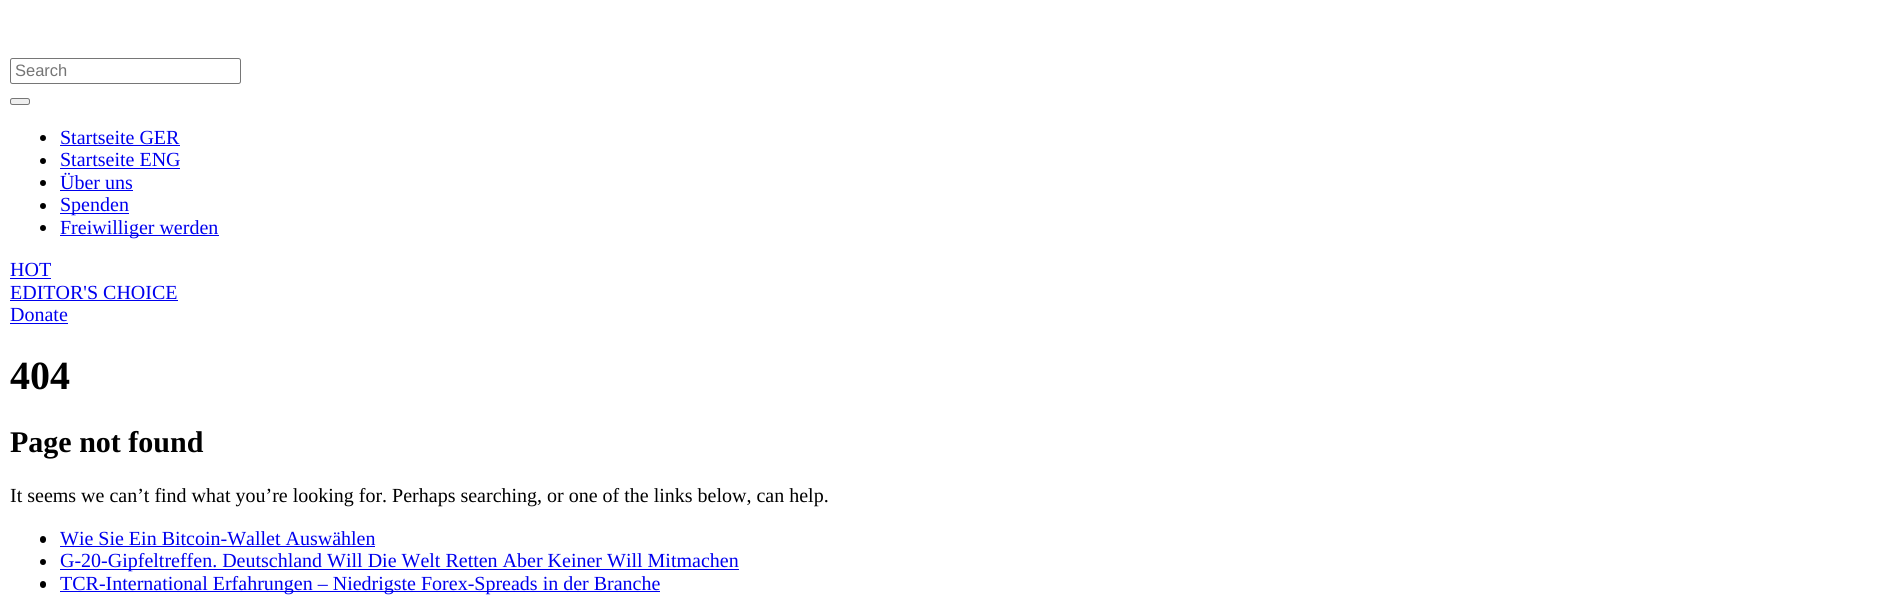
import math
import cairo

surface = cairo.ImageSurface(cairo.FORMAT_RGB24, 1883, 604)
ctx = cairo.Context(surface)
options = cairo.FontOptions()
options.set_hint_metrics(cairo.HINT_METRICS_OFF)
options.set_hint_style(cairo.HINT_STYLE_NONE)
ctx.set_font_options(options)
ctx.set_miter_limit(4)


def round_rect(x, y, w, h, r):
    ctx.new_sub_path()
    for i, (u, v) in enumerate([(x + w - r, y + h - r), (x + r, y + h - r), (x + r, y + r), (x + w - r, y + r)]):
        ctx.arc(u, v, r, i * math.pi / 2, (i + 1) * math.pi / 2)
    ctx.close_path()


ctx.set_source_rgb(1, 1, 1)
ctx.paint()
round_rect(10.5, 58.5, 230, 25, 2)
ctx.set_source_rgb(0.463, 0.463, 0.463)
ctx.set_line_width(1)
ctx.stroke()
ctx.select_font_face("Liberation Sans")
ctx.set_font_size(16.5)
ctx.set_source_rgb(0.459, 0.459, 0.459)
ctx.move_to(15, 76)
ctx.show_text("Search")
ctx.set_source_rgb(0.937, 0.937, 0.937)
round_rect(10.5, 98.5, 19, 6, 2)
ctx.fill_preserve()
ctx.set_source_rgb(0.463, 0.463, 0.463)
ctx.stroke()
ctx.set_source_rgb(0, 0, 0)
ctx.arc(43, 138, 3, 0, 2 * math.pi)
ctx.fill()
ctx.select_font_face("Liberation Serif")
ctx.set_font_size(20)
ctx.set_source_rgb(0, 0, 0.933)
ctx.move_to(60, 144)
ctx.show_text("Startseite GER")
ctx.rectangle(60, 145, 120, 1)
ctx.fill()
ctx.set_source_rgb(0, 0, 0)
ctx.arc(43, 161, 3, 0, 2 * math.pi)
ctx.fill()
ctx.set_source_rgb(0, 0, 0.933)
ctx.move_to(60, 166)
ctx.show_text("Startseite ENG")
ctx.rectangle(60, 168, 120, 1)
ctx.fill()
ctx.set_source_rgb(0, 0, 0)
ctx.arc(43, 183, 3, 0, 2 * math.pi)
ctx.fill()
ctx.set_source_rgb(0, 0, 0.933)
ctx.move_to(60, 189)
ctx.show_text("Über uns")
ctx.rectangle(60, 190, 73, 1)
ctx.fill()
ctx.set_source_rgb(0, 0, 0)
ctx.arc(43, 206, 3, 0, 2 * math.pi)
ctx.fill()
ctx.set_source_rgb(0, 0, 0.933)
ctx.rectangle(60, 213, 69, 1)
ctx.fill()
ctx.move_to(60, 211)
ctx.show_text("Spenden")
ctx.set_source_rgb(0, 0, 0)
ctx.new_path()
ctx.arc(43, 228, 3, 0, 2 * math.pi)
ctx.fill()
ctx.set_source_rgb(0, 0, 0.933)
ctx.rectangle(60, 235, 159, 1)
ctx.fill()
ctx.move_to(60, 234)
ctx.show_text("Freiwilliger werden")
ctx.move_to(10, 276)
ctx.show_text("HOT")
ctx.rectangle(10, 278, 41, 1)
ctx.fill()
ctx.move_to(10, 299)
ctx.show_text("EDITOR'S CHOICE")
ctx.rectangle(10, 300, 168, 1)
ctx.fill()
ctx.move_to(10, 321)
ctx.show_text("Donate")
ctx.rectangle(10, 323, 58, 1)
ctx.fill()
ctx.select_font_face("Liberation Serif", cairo.FONT_SLANT_NORMAL, cairo.FONT_WEIGHT_BOLD)
ctx.set_font_size(40)
ctx.set_source_rgb(0, 0, 0)
ctx.move_to(10, 389)
ctx.show_text("404")
ctx.set_font_size(30)
ctx.move_to(10, 452)
ctx.show_text("Page not found")
ctx.select_font_face("Liberation Serif")
ctx.set_font_size(20)
ctx.move_to(10, 502)
ctx.show_text("It seems we can’t find what you’re looking for. Perhaps searching, or one of the links below, can help.")
round_rect(40, 536, 6, 7, 3)
ctx.fill()
ctx.set_source_rgb(0, 0, 0.933)
ctx.move_to(60, 545)
ctx.show_text("Wie Sie Ein Bitcoin-Wallet Auswählen")
ctx.rectangle(60, 546, 315, 1)
ctx.fill()
ctx.set_source_rgb(0, 0, 0)
ctx.arc(43, 562, 3, 0, 2 * math.pi)
ctx.fill()
ctx.set_source_rgb(0, 0, 0.933)
ctx.rectangle(60, 569, 679, 1)
ctx.fill()
ctx.move_to(60, 567)
ctx.show_text("G-20-Gipfeltreffen. Deutschland Will Die Welt Retten Aber Keiner Will Mitmachen")
ctx.set_source_rgb(0, 0, 0)
round_rect(40, 581, 6, 7, 3)
ctx.fill()
ctx.set_source_rgb(0, 0, 0.933)
ctx.rectangle(60, 591, 600, 1)
ctx.fill()
ctx.move_to(60, 590)
ctx.show_text("TCR-International Erfahrungen – Niedrigste Forex-Spreads in der Branche")
surface.write_to_png("page.png")
